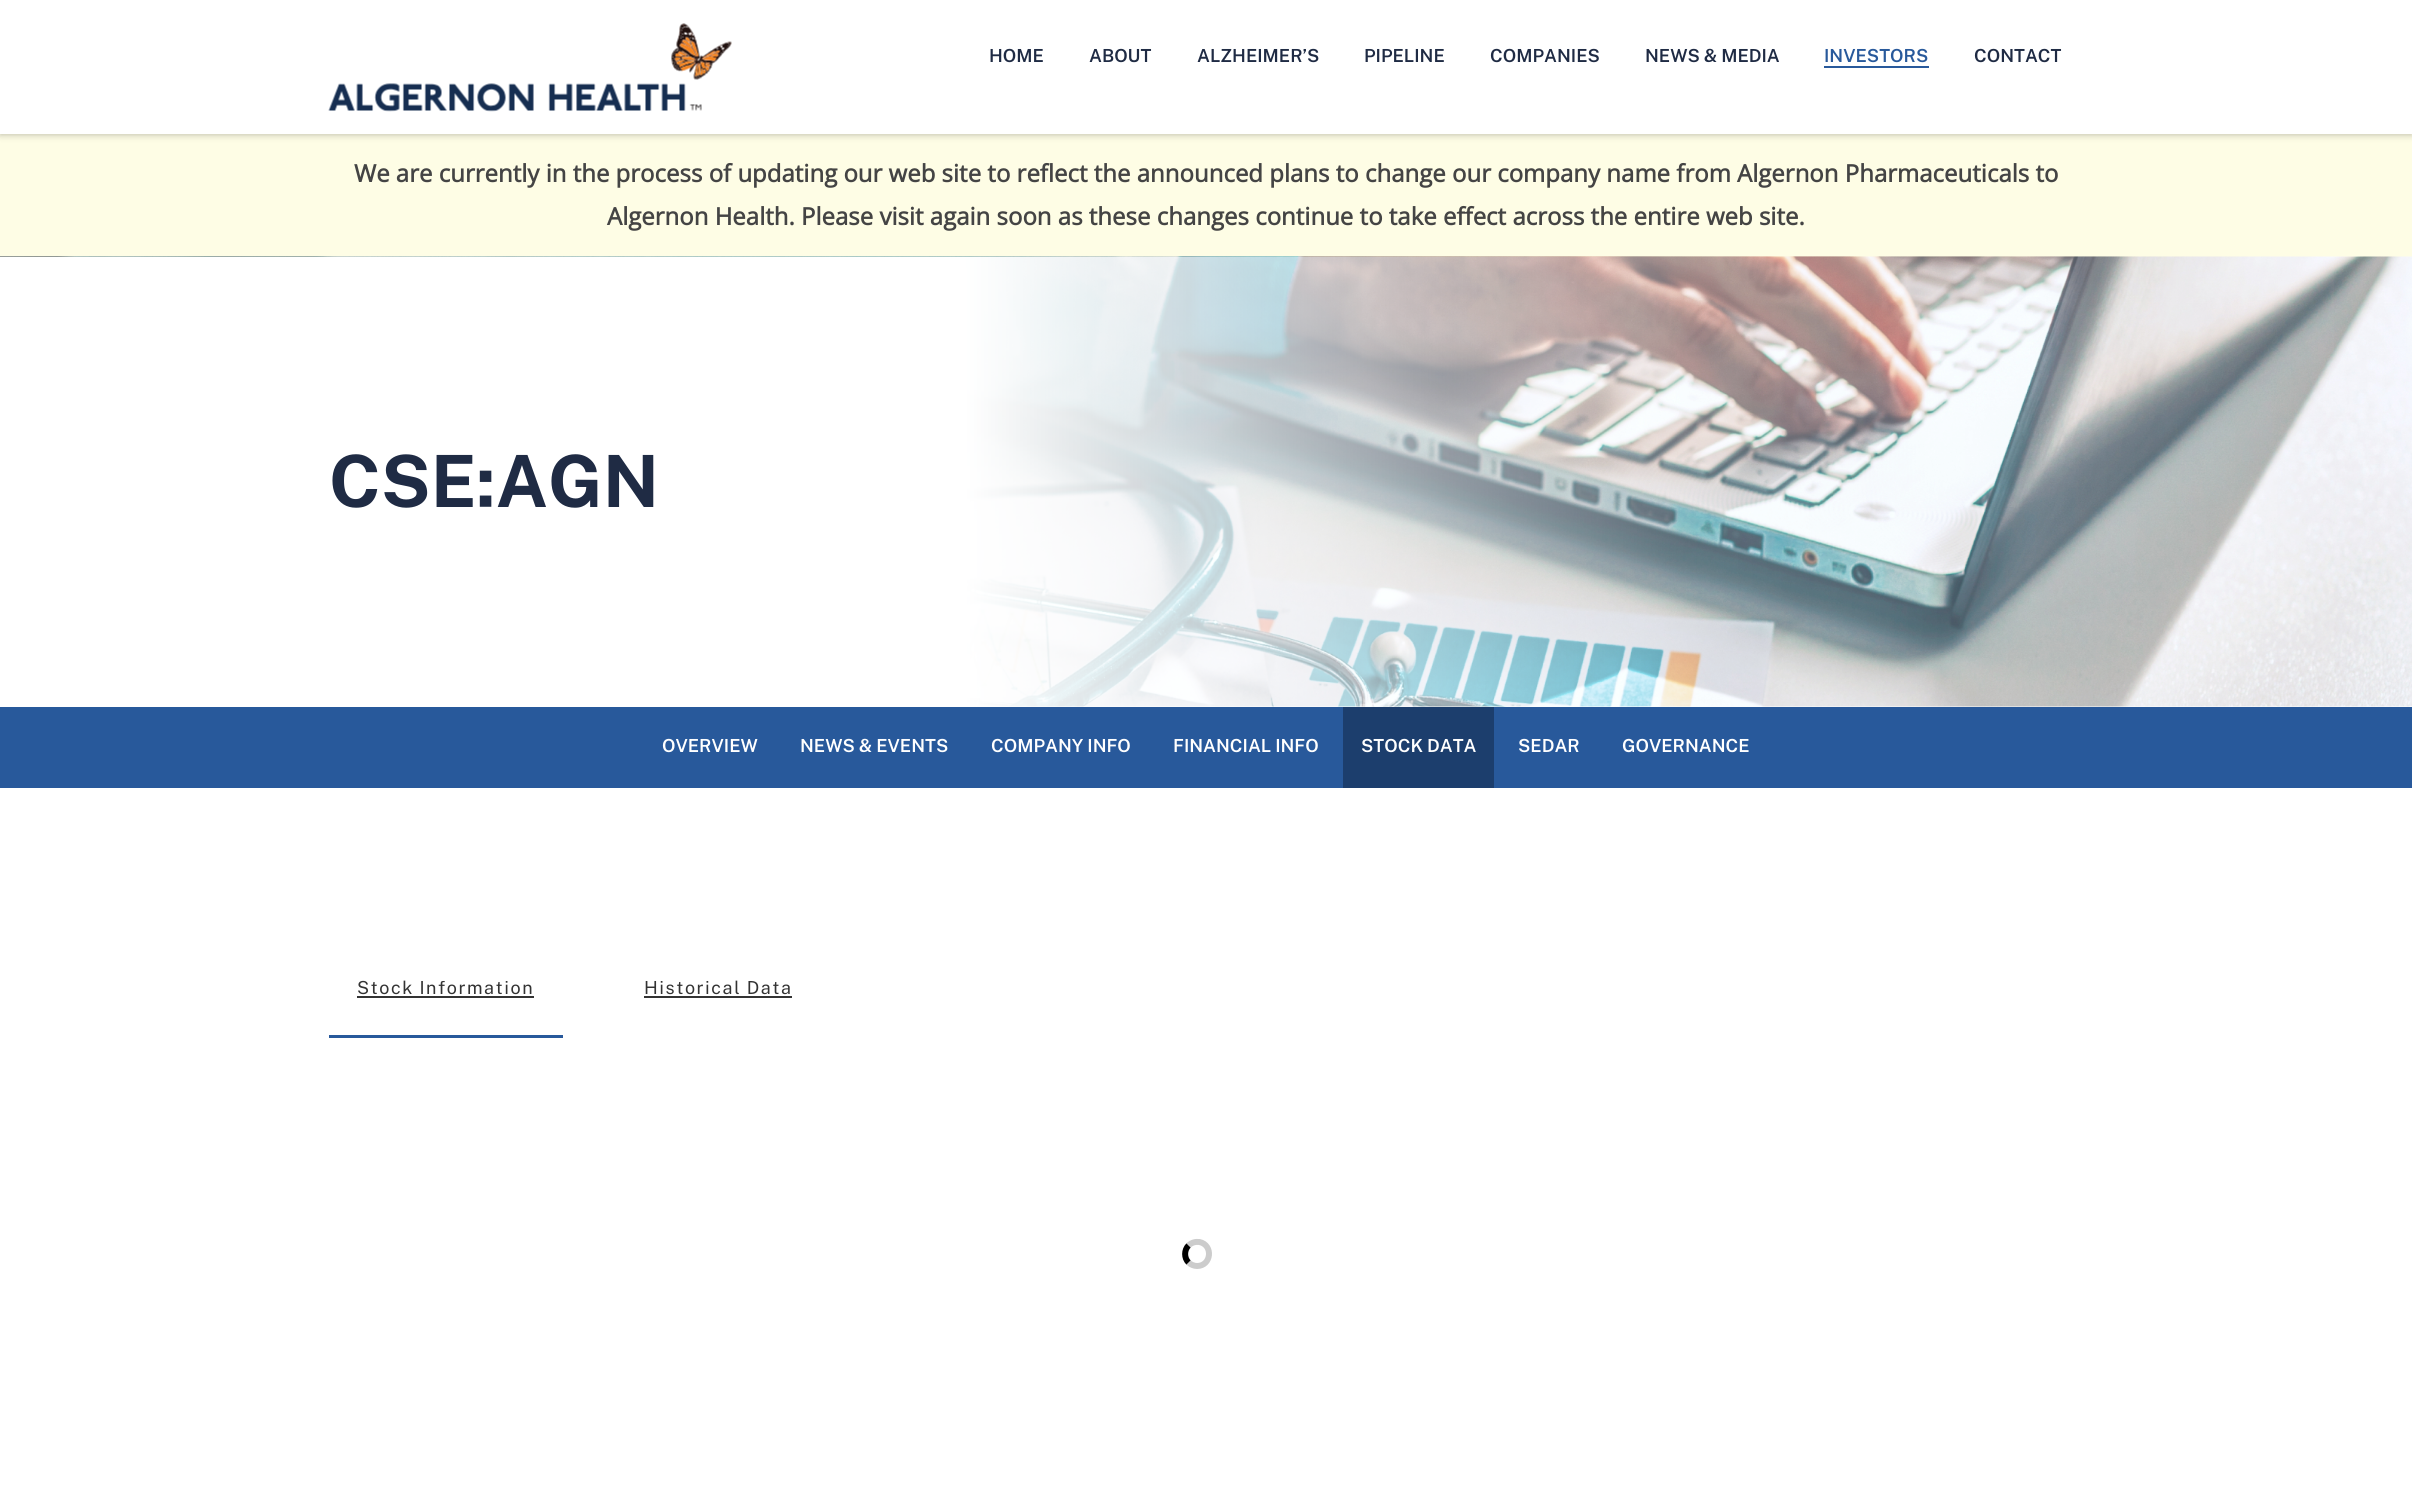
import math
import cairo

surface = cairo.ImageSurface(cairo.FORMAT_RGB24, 2412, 1502)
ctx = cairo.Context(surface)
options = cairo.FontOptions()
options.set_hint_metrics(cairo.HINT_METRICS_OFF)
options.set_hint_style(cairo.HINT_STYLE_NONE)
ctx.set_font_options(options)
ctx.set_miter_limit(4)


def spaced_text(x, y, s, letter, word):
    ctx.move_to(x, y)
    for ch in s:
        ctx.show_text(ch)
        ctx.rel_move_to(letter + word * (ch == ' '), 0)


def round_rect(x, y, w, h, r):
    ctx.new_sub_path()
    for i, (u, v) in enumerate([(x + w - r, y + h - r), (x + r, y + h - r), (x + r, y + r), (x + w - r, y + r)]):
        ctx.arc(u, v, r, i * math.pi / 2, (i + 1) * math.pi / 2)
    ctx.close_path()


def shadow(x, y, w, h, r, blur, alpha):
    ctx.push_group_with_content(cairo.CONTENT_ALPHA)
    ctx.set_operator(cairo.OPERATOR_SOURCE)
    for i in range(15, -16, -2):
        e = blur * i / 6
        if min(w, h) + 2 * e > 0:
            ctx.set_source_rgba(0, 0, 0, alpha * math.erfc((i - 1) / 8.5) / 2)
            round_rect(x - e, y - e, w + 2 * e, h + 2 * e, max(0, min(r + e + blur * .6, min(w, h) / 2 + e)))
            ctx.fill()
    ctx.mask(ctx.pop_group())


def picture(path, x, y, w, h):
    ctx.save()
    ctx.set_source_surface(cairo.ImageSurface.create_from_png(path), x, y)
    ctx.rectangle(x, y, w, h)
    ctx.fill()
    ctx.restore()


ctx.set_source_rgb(1, 1, 1)
ctx.paint()
ctx.set_source_rgb(0.996, 0.992, 0.898)
ctx.rectangle(0, 134, 2412, 123)
ctx.fill()
ctx.set_source_rgb(0, 0, 0)
shadow(0, 0, 2412, 134, 0, 4, 0.3)
ctx.set_source_rgb(1, 1, 1)
ctx.rectangle(0, 0, 2412, 134)
ctx.fill()
picture("img1.png", 328, 23, 404, 89)
ctx.select_font_face("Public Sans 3 Thin")
ctx.set_font_size(18)
ctx.set_source_rgb(0.122, 0.169, 0.267)
ctx.move_to(989, 62)
ctx.show_text("HOME")
ctx.move_to(1089, 62)
ctx.show_text("ABOUT")
ctx.move_to(1197, 62)
ctx.show_text("ALZHEIMER’S")
ctx.move_to(1364, 62)
ctx.show_text("PIPELINE")
ctx.move_to(1490, 62)
ctx.show_text("COMPANIES")
ctx.move_to(1645, 62)
ctx.show_text("NEWS & MEDIA")
ctx.set_source_rgb(0.157, 0.349, 0.608)
ctx.move_to(1824, 62)
ctx.show_text("INVESTORS")
ctx.rectangle(1824, 66, 105, 2)
ctx.fill()
ctx.set_source_rgb(0.122, 0.169, 0.267)
ctx.move_to(1974, 62)
ctx.show_text("CONTACT")
ctx.select_font_face("Open Sans", cairo.FONT_SLANT_NORMAL, cairo.FONT_WEIGHT_BOLD)
ctx.set_font_size(24)
ctx.set_source_rgb(0.267, 0.267, 0.267)
ctx.move_to(354, 182)
ctx.show_text("We are currently in the process of updating our web site to reflect the announced plans to change our company name from Algernon Pharmaceuticals to")
ctx.move_to(607, 225)
ctx.show_text("Algernon Health. Please visit again soon as these changes continue to take effect across the entire web site.")
picture("img2.png", 0, 256, 2412, 451)
gradient = cairo.LinearGradient(0, 482, 2412, 481)
gradient.add_color_stop_rgba(0.4, 1, 1, 1, 1)
gradient.add_color_stop_rgba(0.7, 1, 1, 1, 0.2)
gradient.add_color_stop_rgba(1, 1, 1, 1, 0)
ctx.set_source(gradient)
ctx.rectangle(0, 257, 2334, 450)
ctx.fill()
ctx.select_font_face("Public Sans Thin")
ctx.set_font_size(72)
ctx.set_source_rgb(0.122, 0.169, 0.267)
ctx.move_to(329, 507)
ctx.show_text("CSE:AGN")
ctx.set_source_rgb(0.157, 0.349, 0.608)
ctx.rectangle(0, 707, 2412, 81)
ctx.fill()
ctx.select_font_face("Public Sans 3 Thin")
ctx.set_font_size(18)
ctx.set_source_rgb(1, 1, 1)
ctx.move_to(662, 752)
ctx.show_text("OVERVIEW")
ctx.move_to(800, 752)
ctx.show_text("NEWS & EVENTS")
ctx.move_to(991, 752)
ctx.show_text("COMPANY INFO")
ctx.move_to(1173, 752)
ctx.show_text("FINANCIAL INFO")
ctx.set_source_rgb(0.11, 0.243, 0.427)
ctx.rectangle(1343, 707, 151, 81)
ctx.fill()
ctx.set_source_rgb(1, 1, 1)
ctx.move_to(1361, 752)
ctx.show_text("STOCK DATA")
ctx.move_to(1518, 752)
ctx.show_text("SEDAR")
ctx.move_to(1622, 752)
ctx.show_text("GOVERNANCE")
ctx.select_font_face("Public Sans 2 Thin")
ctx.set_source_rgb(0.2, 0.2, 0.2)
spaced_text(357, 994, "Stock Information", 1.5, 0)
ctx.rectangle(357, 996, 177, 2)
ctx.fill()
ctx.set_source_rgb(0.157, 0.349, 0.608)
ctx.rectangle(329, 1035, 234, 3)
ctx.fill()
ctx.set_source_rgb(0.2, 0.2, 0.2)
spaced_text(644, 994, "Historical Data", 1.5, 0)
ctx.rectangle(644, 996, 148, 2)
ctx.fill()
ctx.new_path()
ctx.move_to(1188.5, 1245.5)
ctx.curve_to(1191.5, 1242.5, 1195.5, 1241.5, 1199.5, 1242)
ctx.curve_to(1213.5, 1245, 1211.5, 1266, 1197, 1266)
ctx.curve_to(1194, 1266, 1190.5, 1264.5, 1188.5, 1262.5)
ctx.set_source_rgb(0.8, 0.8, 0.8)
ctx.set_line_width(6)
ctx.stroke()
ctx.new_path()
ctx.move_to(1188.5, 1262.5)
ctx.curve_to(1184, 1258, 1184, 1250, 1188.5, 1245.5)
ctx.set_source_rgb(0, 0, 0)
ctx.stroke()
surface.write_to_png("page.png")
